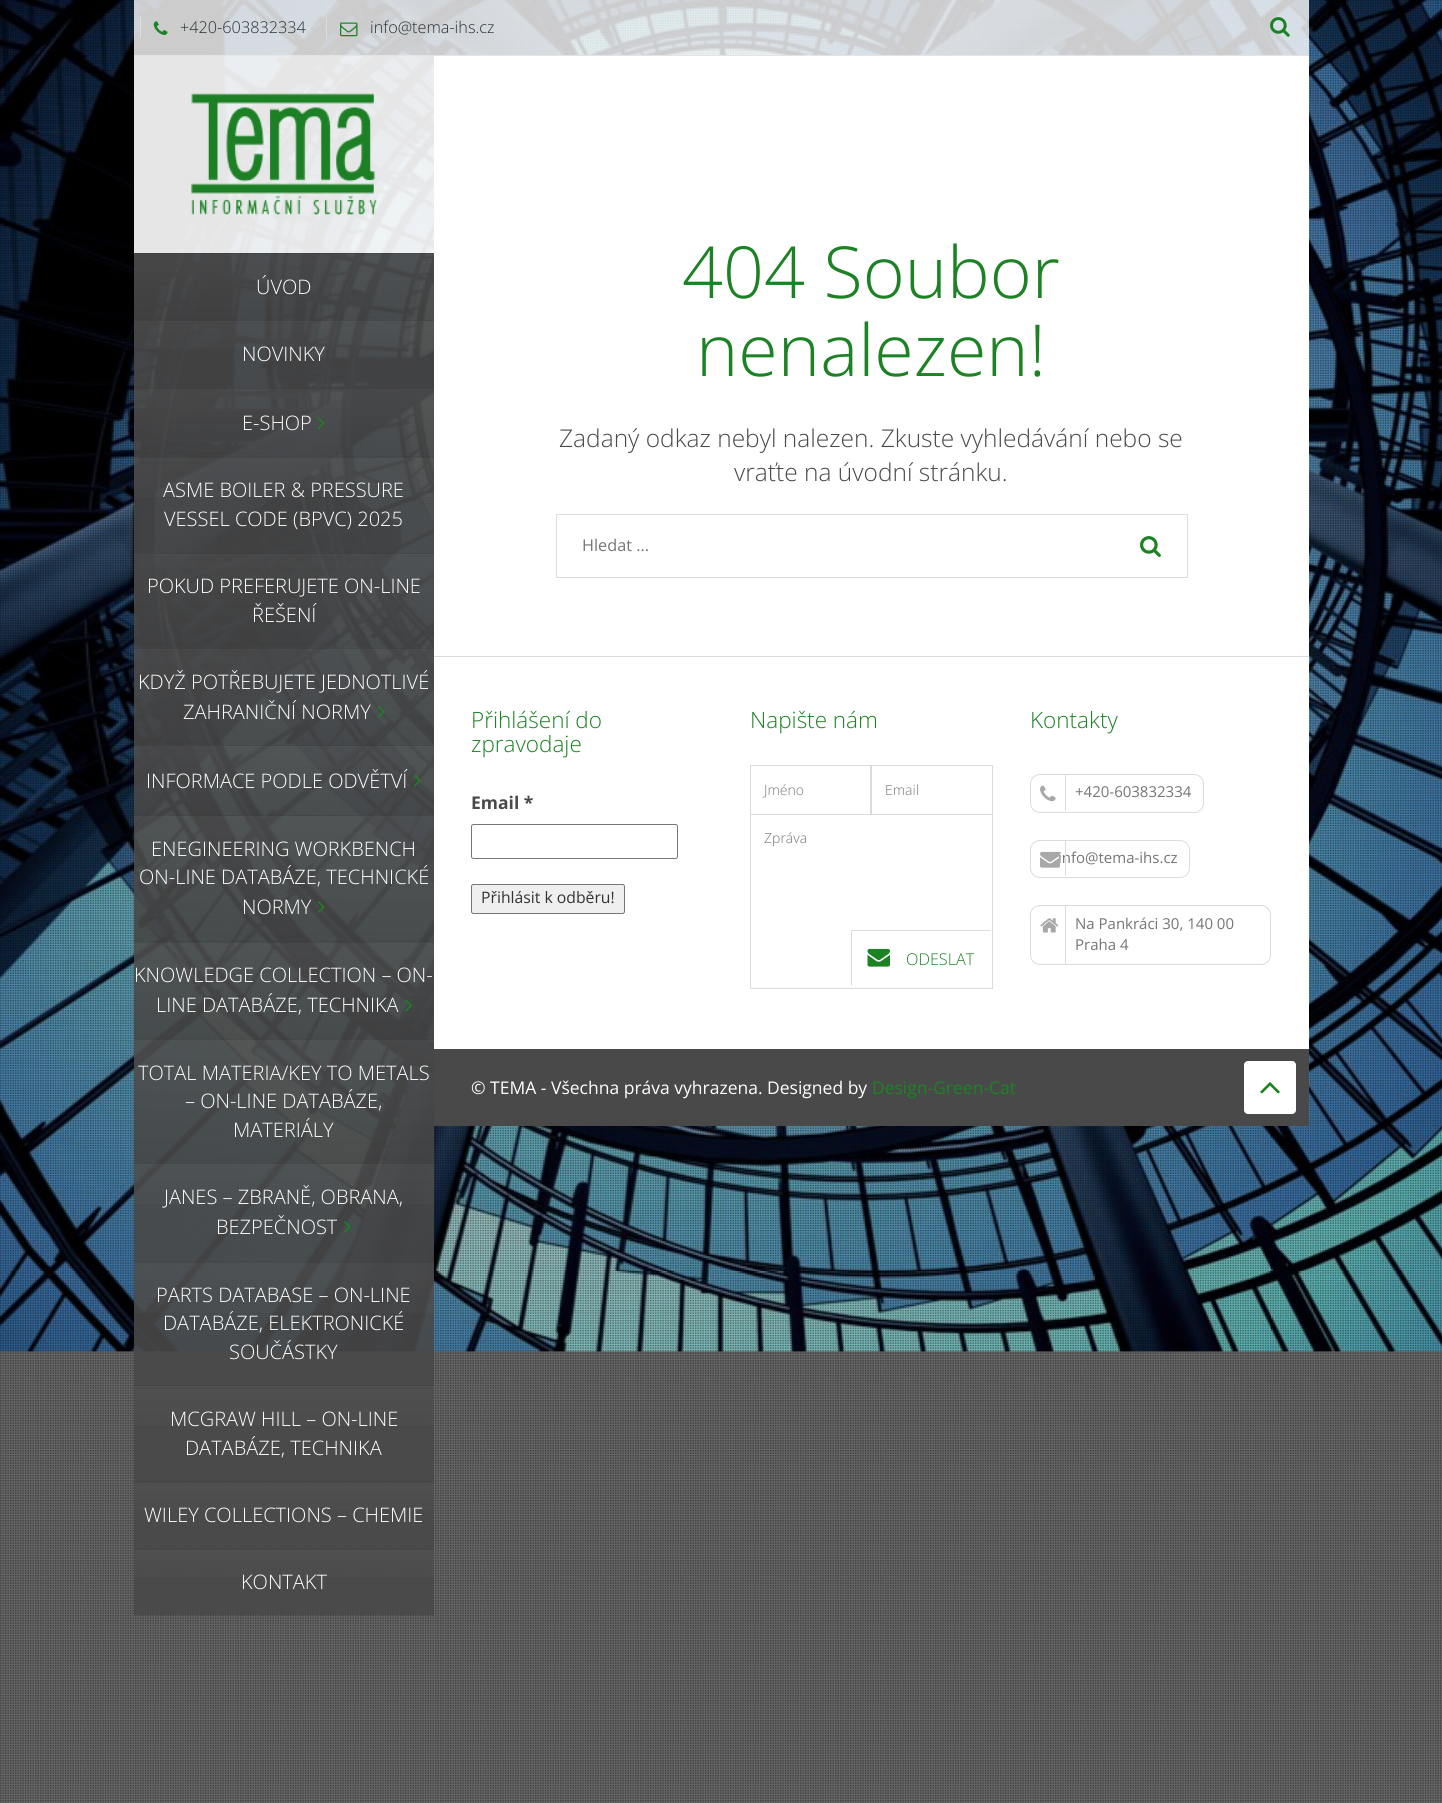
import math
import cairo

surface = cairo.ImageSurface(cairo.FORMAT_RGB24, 1442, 1803)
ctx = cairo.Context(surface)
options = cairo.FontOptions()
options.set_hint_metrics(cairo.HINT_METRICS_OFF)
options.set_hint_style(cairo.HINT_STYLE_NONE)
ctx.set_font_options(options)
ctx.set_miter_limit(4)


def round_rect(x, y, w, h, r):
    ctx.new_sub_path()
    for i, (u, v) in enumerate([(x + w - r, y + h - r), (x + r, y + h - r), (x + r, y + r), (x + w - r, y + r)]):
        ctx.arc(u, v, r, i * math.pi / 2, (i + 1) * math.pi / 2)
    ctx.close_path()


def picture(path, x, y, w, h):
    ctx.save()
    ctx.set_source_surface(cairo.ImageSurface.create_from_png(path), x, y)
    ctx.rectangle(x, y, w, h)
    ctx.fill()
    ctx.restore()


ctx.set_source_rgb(0.4, 0.4, 0.4)
ctx.paint()
picture("img1.png", 0, 0, 1442, 1352)
picture("img2.png", 0, 0, 1442, 1803)
ctx.set_source_rgba(1, 1, 1, 0.8)
ctx.rectangle(134, 0, 1175, 55)
ctx.fill()
ctx.set_source_rgb(0.894, 0.894, 0.894)
ctx.rectangle(134, 55, 1175, 1)
ctx.fill()
ctx.set_source_rgb(0.867, 0.867, 0.867)
ctx.rectangle(140, 16, 1, 22)
ctx.fill()
picture("img3.png", 153, 21, 15, 14)
ctx.select_font_face("Open Sans Light")
ctx.set_font_size(16.25)
ctx.set_source_rgb(0.145, 0.192, 0.208)
ctx.move_to(180, 33)
ctx.show_text("+420-603832334")
ctx.set_source_rgb(0.867, 0.867, 0.867)
ctx.rectangle(326, 16, 1, 22)
ctx.fill()
picture("img4.png", 340, 22, 18, 15)
ctx.set_source_rgb(0.145, 0.192, 0.208)
ctx.move_to(370, 33)
ctx.show_text("info@tema-ihs.cz")
picture("img5.png", 1270, 17, 20, 20)
ctx.set_source_rgba(1, 1, 1, 0.9)
ctx.rectangle(134, 56, 300, 197)
ctx.fill()
picture("img6.png", 191, 93, 186, 122)
ctx.set_source_rgba(0.286, 0.286, 0.286, 0.9)
ctx.rectangle(134, 253, 300, 67)
ctx.fill()
gradient = cairo.LinearGradient(284, 320, 284, 254)
gradient.add_color_stop_rgba(0, 0, 0, 0, 0.03)
gradient.add_color_stop_rgba(1, 1, 1, 1, 0.03)
ctx.set_source(gradient)
ctx.rectangle(134, 254, 300, 66)
ctx.fill()
ctx.set_source_rgba(0.22, 0.22, 0.22, 0.2)
ctx.rectangle(194, 253, 240, 1)
ctx.fill()
ctx.set_font_size(20)
ctx.set_source_rgb(1, 1, 1)
ctx.move_to(256, 294)
ctx.show_text("ÚVOD")
ctx.set_source_rgba(0.286, 0.286, 0.286, 0.9)
ctx.rectangle(134, 320, 300, 68)
ctx.fill()
gradient = cairo.LinearGradient(284, 321, 284, 255)
gradient.add_color_stop_rgba(0, 0, 0, 0, 0.03)
gradient.add_color_stop_rgba(1, 1, 1, 1, 0.03)
ctx.set_source(gradient)
ctx.rectangle(429, 320, 5, 1)
ctx.fill()
gradient = cairo.LinearGradient(284, 388, 284, 321)
gradient.add_color_stop_rgba(0, 0, 0, 0, 0.03)
gradient.add_color_stop_rgba(1, 1, 1, 1, 0.03)
ctx.set_source(gradient)
ctx.rectangle(134, 321, 300, 28)
ctx.fill()
ctx.set_source_rgba(0.22, 0.22, 0.22, 0.2)
ctx.rectangle(161, 320, 273, 1)
ctx.fill()
ctx.set_source_rgb(1, 1, 1)
ctx.move_to(242, 361)
ctx.show_text("NOVINKY")
ctx.set_source_rgba(0.286, 0.286, 0.286, 0.9)
ctx.rectangle(134, 388, 300, 68)
ctx.fill()
gradient = cairo.LinearGradient(284, 456, 284, 389)
gradient.add_color_stop_rgba(0, 0, 0, 0, 0.03)
gradient.add_color_stop_rgba(1, 1, 1, 1, 0.03)
ctx.set_source(gradient)
ctx.rectangle(134, 389, 300, 66)
ctx.fill()
ctx.set_source_rgba(0.22, 0.22, 0.22, 0.2)
ctx.rectangle(149, 388, 203, 1)
ctx.fill()
ctx.set_source_rgb(1, 1, 1)
ctx.move_to(242, 430)
ctx.show_text("E-SHOP")
picture("img7.png", 317, 417, 8, 12)
ctx.set_source_rgba(0.286, 0.286, 0.286, 0.9)
ctx.rectangle(134, 456, 300, 97)
ctx.fill()
gradient = cairo.LinearGradient(284, 458, 284, 363)
gradient.add_color_stop_rgba(0, 0, 0, 0, 0.03)
gradient.add_color_stop_rgba(1, 1, 1, 1, 0.03)
ctx.set_source(gradient)
ctx.rectangle(339, 456, 95, 2)
ctx.fill()
gradient = cairo.LinearGradient(284, 553, 284, 458)
gradient.add_color_stop_rgba(0, 0, 0, 0, 0.03)
gradient.add_color_stop_rgba(1, 1, 1, 1, 0.03)
ctx.set_source(gradient)
ctx.rectangle(134, 458, 300, 39)
ctx.fill()
ctx.set_source_rgba(0.22, 0.22, 0.22, 0.2)
ctx.rectangle(134, 456, 300, 1)
ctx.fill()
ctx.set_source_rgb(1, 1, 1)
ctx.move_to(163, 497)
ctx.show_text("ASME BOILER & PRESSURE")
ctx.move_to(164, 526)
ctx.show_text("VESSEL CODE (BPVC) 2025")
ctx.set_source_rgba(0.286, 0.286, 0.286, 0.9)
ctx.rectangle(134, 553, 300, 95)
ctx.fill()
gradient = cairo.LinearGradient(284, 648, 284, 554)
gradient.add_color_stop_rgba(0, 0, 0, 0, 0.03)
gradient.add_color_stop_rgba(1, 1, 1, 1, 0.03)
ctx.set_source(gradient)
ctx.rectangle(134, 554, 300, 93)
ctx.fill()
ctx.set_source_rgba(0.22, 0.22, 0.22, 0.2)
ctx.rectangle(154, 553, 280, 1)
ctx.fill()
ctx.set_source_rgb(1, 1, 1)
ctx.move_to(147, 593)
ctx.show_text("POKUD PREFERUJETE ON-LINE")
ctx.move_to(252, 622)
ctx.show_text("ŘEŠENÍ")
ctx.set_source_rgba(0.286, 0.286, 0.286, 0.9)
ctx.rectangle(134, 648, 300, 97)
ctx.fill()
gradient = cairo.LinearGradient(284, 745, 284, 649)
gradient.add_color_stop_rgba(0, 0, 0, 0, 0.03)
gradient.add_color_stop_rgba(1, 1, 1, 1, 0.03)
ctx.set_source(gradient)
ctx.rectangle(134, 649, 300, 96)
ctx.fill()
ctx.set_source_rgba(0.22, 0.22, 0.22, 0.2)
ctx.rectangle(134, 648, 300, 1)
ctx.fill()
ctx.set_source_rgb(1, 1, 1)
ctx.move_to(138, 689)
ctx.show_text("KDYŽ POTŘEBUJETE JEDNOTLIVÉ")
ctx.move_to(183, 719)
ctx.show_text("ZAHRANIČNÍ NORMY")
picture("img8.png", 377, 706, 8, 12)
ctx.set_source_rgba(0.286, 0.286, 0.286, 0.9)
ctx.rectangle(134, 745, 300, 70)
ctx.fill()
gradient = cairo.LinearGradient(284, 746, 284, 678)
gradient.add_color_stop_rgba(0, 0, 0, 0, 0.03)
gradient.add_color_stop_rgba(1, 1, 1, 1, 0.03)
ctx.set_source(gradient)
ctx.rectangle(274, 745, 131, 1)
ctx.fill()
gradient = cairo.LinearGradient(284, 815, 284, 746)
gradient.add_color_stop_rgba(0, 0, 0, 0, 0.03)
gradient.add_color_stop_rgba(1, 1, 1, 1, 0.03)
ctx.set_source(gradient)
ctx.rectangle(134, 746, 300, 69)
ctx.fill()
ctx.set_source_rgba(0.22, 0.22, 0.22, 0.2)
ctx.rectangle(194, 745, 240, 1)
ctx.fill()
ctx.set_source_rgb(1, 1, 1)
ctx.move_to(146, 788)
ctx.show_text("INFORMACE PODLE ODVĚTVÍ")
picture("img9.png", 414, 774, 7, 13)
ctx.set_source_rgba(0.286, 0.286, 0.286, 0.9)
ctx.rectangle(134, 815, 300, 126)
ctx.fill()
gradient = cairo.LinearGradient(284, 816, 284, 691)
gradient.add_color_stop_rgba(0, 0, 0, 0, 0.03)
gradient.add_color_stop_rgba(1, 1, 1, 1, 0.03)
ctx.set_source(gradient)
ctx.rectangle(169, 815, 186, 1)
ctx.fill()
gradient = cairo.LinearGradient(284, 941, 284, 816)
gradient.add_color_stop_rgba(0, 0, 0, 0, 0.03)
gradient.add_color_stop_rgba(1, 1, 1, 1, 0.03)
ctx.set_source(gradient)
ctx.rectangle(134, 816, 300, 125)
ctx.fill()
ctx.set_source_rgba(0.22, 0.22, 0.22, 0.2)
ctx.rectangle(134, 815, 300, 1)
ctx.fill()
ctx.set_source_rgb(1, 1, 1)
ctx.move_to(151, 856)
ctx.show_text("ENEGINEERING WORKBENCH")
ctx.move_to(139, 884)
ctx.show_text("ON-LINE DATABÁZE, TECHNICKÉ")
ctx.move_to(242, 914)
ctx.show_text("NORMY")
picture("img10.png", 317, 901, 8, 12)
ctx.set_source_rgba(0.286, 0.286, 0.286, 0.9)
ctx.rectangle(134, 941, 300, 98)
ctx.fill()
gradient = cairo.LinearGradient(284, 943, 284, 846)
gradient.add_color_stop_rgba(0, 0, 0, 0, 0.03)
gradient.add_color_stop_rgba(1, 1, 1, 1, 0.03)
ctx.set_source(gradient)
ctx.rectangle(149, 941, 285, 2)
ctx.fill()
gradient = cairo.LinearGradient(284, 1039, 284, 943)
gradient.add_color_stop_rgba(0, 0, 0, 0, 0.03)
gradient.add_color_stop_rgba(1, 1, 1, 1, 0.03)
ctx.set_source(gradient)
ctx.rectangle(134, 943, 300, 96)
ctx.fill()
ctx.set_source_rgba(0.22, 0.22, 0.22, 0.2)
ctx.rectangle(134, 941, 300, 1)
ctx.fill()
ctx.set_source_rgb(1, 1, 1)
ctx.move_to(134, 982)
ctx.show_text("KNOWLEDGE COLLECTION – ON-")
ctx.move_to(156, 1012)
ctx.show_text("LINE DATABÁZE, TECHNIKA")
picture("img11.png", 405, 999, 7, 13)
ctx.set_source_rgba(0.286, 0.286, 0.286, 0.9)
ctx.rectangle(134, 1039, 300, 124)
ctx.fill()
gradient = cairo.LinearGradient(284, 1040, 284, 918)
gradient.add_color_stop_rgba(0, 0, 0, 0, 0.03)
gradient.add_color_stop_rgba(1, 1, 1, 1, 0.03)
ctx.set_source(gradient)
ctx.rectangle(227, 1039, 93, 1)
ctx.fill()
gradient = cairo.LinearGradient(284, 1163, 284, 1040)
gradient.add_color_stop_rgba(0, 0, 0, 0, 0.03)
gradient.add_color_stop_rgba(1, 1, 1, 1, 0.03)
ctx.set_source(gradient)
ctx.rectangle(134, 1040, 300, 123)
ctx.fill()
ctx.set_source_rgba(0.22, 0.22, 0.22, 0.2)
ctx.rectangle(134, 1039, 300, 1)
ctx.fill()
ctx.set_source_rgb(1, 1, 1)
ctx.move_to(138, 1080)
ctx.show_text("TOTAL MATERIA/KEY TO METALS")
ctx.move_to(185, 1108)
ctx.show_text("– ON-LINE DATABÁZE,")
ctx.move_to(233, 1137)
ctx.show_text("MATERIÁLY")
ctx.set_source_rgba(0.286, 0.286, 0.286, 0.9)
ctx.rectangle(134, 1163, 300, 98)
ctx.fill()
gradient = cairo.LinearGradient(284, 1164, 284, 1066)
gradient.add_color_stop_rgba(0, 0, 0, 0, 0.03)
gradient.add_color_stop_rgba(1, 1, 1, 1, 0.03)
ctx.set_source(gradient)
ctx.rectangle(324, 1163, 36, 1)
ctx.fill()
gradient = cairo.LinearGradient(284, 1261, 284, 1164)
gradient.add_color_stop_rgba(0, 0, 0, 0, 0.03)
gradient.add_color_stop_rgba(1, 1, 1, 1, 0.03)
ctx.set_source(gradient)
ctx.rectangle(134, 1164, 300, 40)
ctx.fill()
ctx.set_source_rgba(0.22, 0.22, 0.22, 0.2)
ctx.rectangle(134, 1163, 300, 1)
ctx.fill()
ctx.set_source_rgb(1, 1, 1)
ctx.move_to(164, 1204)
ctx.show_text("JANES – ZBRANĚ, OBRANA,")
ctx.move_to(216, 1234)
ctx.show_text("BEZPEČNOST")
picture("img12.png", 344, 1221, 7, 12)
ctx.set_source_rgba(0.286, 0.286, 0.286, 0.9)
ctx.rectangle(134, 1261, 300, 124)
ctx.fill()
gradient = cairo.LinearGradient(284, 1385, 284, 1263)
gradient.add_color_stop_rgba(0, 0, 0, 0, 0.03)
gradient.add_color_stop_rgba(1, 1, 1, 1, 0.03)
ctx.set_source(gradient)
ctx.rectangle(134, 1263, 300, 50)
ctx.fill()
ctx.set_source_rgba(0.22, 0.22, 0.22, 0.2)
ctx.rectangle(134, 1261, 300, 1)
ctx.fill()
ctx.set_source_rgb(1, 1, 1)
ctx.move_to(156, 1302)
ctx.show_text("PARTS DATABASE – ON-LINE")
ctx.move_to(163, 1330)
ctx.show_text("DATABÁZE, ELEKTRONICKÉ")
ctx.move_to(229, 1359)
ctx.show_text("SOUČÁSTKY")
ctx.set_source_rgba(0.286, 0.286, 0.286, 0.9)
ctx.rectangle(134, 1385, 300, 96)
ctx.fill()
gradient = cairo.LinearGradient(284, 1481, 284, 1386)
gradient.add_color_stop_rgba(0, 0, 0, 0, 0.03)
gradient.add_color_stop_rgba(1, 1, 1, 1, 0.03)
ctx.set_source(gradient)
ctx.rectangle(134, 1386, 300, 39)
ctx.fill()
ctx.set_source_rgba(0.22, 0.22, 0.22, 0.2)
ctx.rectangle(134, 1385, 300, 1)
ctx.fill()
ctx.set_source_rgb(1, 1, 1)
ctx.move_to(170, 1426)
ctx.show_text("MCGRAW HILL – ON-LINE")
ctx.move_to(185, 1455)
ctx.show_text("DATABÁZE, TECHNIKA")
ctx.set_source_rgba(0.286, 0.286, 0.286, 0.9)
ctx.rectangle(134, 1483, 300, 66)
ctx.fill()
gradient = cairo.LinearGradient(284, 1483, 284, 1416)
gradient.add_color_stop_rgba(0, 0.286, 0.286, 0.286, 1)
gradient.add_color_stop_rgba(1, 0.314, 0.314, 0.314, 1)
ctx.set_source(gradient)
ctx.rectangle(134, 1482, 300, 1)
ctx.fill()
gradient = cairo.LinearGradient(284, 1549, 284, 1483)
gradient.add_color_stop_rgba(0, 0, 0, 0, 0.03)
gradient.add_color_stop_rgba(1, 1, 1, 1, 0.03)
ctx.set_source(gradient)
ctx.rectangle(134, 1483, 300, 27)
ctx.fill()
ctx.set_source_rgb(0.275, 0.275, 0.275)
ctx.rectangle(134, 1481, 300, 1)
ctx.fill()
ctx.set_source_rgb(1, 1, 1)
ctx.move_to(144, 1522)
ctx.show_text("WILEY COLLECTIONS – CHEMIE")
ctx.set_source_rgba(0.286, 0.286, 0.286, 0.9)
ctx.rectangle(134, 1550, 300, 65)
ctx.fill()
gradient = cairo.LinearGradient(284, 1615, 284, 1550)
gradient.add_color_stop_rgba(0, 0, 0, 0, 0.03)
gradient.add_color_stop_rgba(1, 1, 1, 1, 0.03)
ctx.set_source(gradient)
ctx.rectangle(134, 1550, 300, 27)
ctx.fill()
ctx.set_source_rgb(0.275, 0.275, 0.275)
ctx.rectangle(134, 1549, 300, 1)
ctx.fill()
ctx.set_source_rgb(1, 1, 1)
ctx.move_to(241, 1589)
ctx.show_text("KONTAKT")
ctx.rectangle(434, 56, 875, 600)
ctx.fill()
ctx.set_font_size(71.75)
ctx.set_source_rgb(0.11, 0.51, 0.141)
ctx.move_to(682, 298)
ctx.show_text("404 Soubor")
ctx.move_to(696, 376)
ctx.show_text("nenalezen!")
ctx.set_font_size(24.5)
ctx.set_source_rgb(0.286, 0.286, 0.286)
ctx.move_to(559, 447)
ctx.show_text("Zadaný odkaz nebyl nalezen. Zkuste vyhledávání nebo se")
ctx.move_to(734, 481)
ctx.show_text("vraťte na úvodní stránku.")
ctx.rectangle(556.5, 514.5, 631, 63)
ctx.set_source_rgb(0.863, 0.863, 0.863)
ctx.set_line_width(1)
ctx.stroke()
ctx.select_font_face("Open Sans")
ctx.set_font_size(16.25)
ctx.set_source_rgb(0.459, 0.459, 0.459)
ctx.move_to(582, 551)
ctx.show_text("Hledat ...")
picture("img13.png", 1140, 536, 21, 21)
ctx.set_source_rgb(1, 1, 1)
ctx.rectangle(434, 657, 875, 392)
ctx.fill()
ctx.set_source_rgb(0.859, 0.859, 0.859)
ctx.rectangle(434, 656, 875, 1)
ctx.fill()
ctx.select_font_face("Open Sans Light")
ctx.set_font_size(22.5)
ctx.set_source_rgb(0.11, 0.51, 0.141)
ctx.move_to(471, 728)
ctx.show_text("Přihlášení do")
ctx.move_to(471, 752)
ctx.show_text("zpravodaje")
ctx.select_font_face("Open Sans", cairo.FONT_SLANT_NORMAL, cairo.FONT_WEIGHT_BOLD)
ctx.set_font_size(17.5)
ctx.set_source_rgb(0.286, 0.286, 0.286)
ctx.move_to(471, 809)
ctx.show_text("Email *")
round_rect(471.5, 824.5, 206, 34, 2)
ctx.set_source_rgb(0.463, 0.463, 0.463)
ctx.stroke()
ctx.set_source_rgb(0.937, 0.937, 0.937)
round_rect(471.5, 884.5, 153, 29, 2)
ctx.fill_preserve()
ctx.set_source_rgb(0.463, 0.463, 0.463)
ctx.stroke()
ctx.select_font_face("Open Sans")
ctx.set_font_size(15.75)
ctx.set_source_rgb(0.2, 0.2, 0.2)
ctx.move_to(481, 903)
ctx.show_text("Přihlásit k odběru!")
ctx.select_font_face("Open Sans Light")
ctx.set_font_size(22.5)
ctx.set_source_rgb(0.11, 0.51, 0.141)
ctx.move_to(750, 728)
ctx.show_text("Napište nám")
ctx.rectangle(750.5, 765.5, 120, 49)
ctx.set_source_rgb(0.859, 0.859, 0.859)
ctx.stroke()
ctx.set_font_size(14)
ctx.set_source_rgb(0.459, 0.459, 0.459)
ctx.move_to(764, 795)
ctx.show_text("Jméno")
ctx.rectangle(871.5, 765.5, 121, 49)
ctx.set_source_rgb(0.859, 0.859, 0.859)
ctx.stroke()
ctx.set_source_rgb(0.459, 0.459, 0.459)
ctx.move_to(885, 795)
ctx.show_text("Email")
ctx.rectangle(750.5, 814.5, 242, 174)
ctx.set_source_rgb(0.859, 0.859, 0.859)
ctx.stroke()
ctx.set_source_rgb(0.459, 0.459, 0.459)
ctx.move_to(764, 843)
ctx.show_text("Zpráva")
ctx.set_source_rgb(0.859, 0.859, 0.859)
ctx.new_path()
ctx.move_to(851, 930)
ctx.line_to(991, 930)
ctx.line_to(990, 931)
ctx.line_to(852, 931)
ctx.close_path()
ctx.fill()
ctx.new_path()
ctx.move_to(851, 986)
ctx.line_to(851, 930)
ctx.line_to(852, 931)
ctx.line_to(852, 985)
ctx.close_path()
ctx.fill()
picture("img14.png", 867, 948, 23, 19)
ctx.set_font_size(16.25)
ctx.set_source_rgb(0.11, 0.51, 0.141)
ctx.move_to(906, 965)
ctx.show_text("ODESLAT")
ctx.set_font_size(22.5)
ctx.move_to(1030, 728)
ctx.show_text("Kontakty")
round_rect(1030.5, 774.5, 173, 38, 9.5)
ctx.set_source_rgb(0.859, 0.859, 0.859)
ctx.stroke()
picture("img15.png", 1040, 785, 16, 17)
ctx.rectangle(1065, 775, 1, 36)
ctx.fill()
ctx.select_font_face("Open Sans")
ctx.set_font_size(15)
ctx.set_source_rgb(0.459, 0.459, 0.459)
ctx.move_to(1075, 797)
ctx.show_text("+420-603832334")
round_rect(1030.5, 840.5, 159, 37, 9.5)
ctx.set_source_rgb(0.859, 0.859, 0.859)
ctx.stroke()
ctx.set_source_rgb(0.459, 0.459, 0.459)
ctx.move_to(1058, 863)
ctx.show_text("info@tema-ihs.cz")
picture("img16.png", 1040, 851, 20, 17)
ctx.set_source_rgb(0.859, 0.859, 0.859)
ctx.rectangle(1065, 841, 1, 35)
ctx.fill()
round_rect(1030.5, 905.5, 240, 59, 9.5)
ctx.stroke()
picture("img17.png", 1040, 918, 19, 15)
ctx.rectangle(1065, 906, 1, 58)
ctx.fill()
ctx.set_source_rgb(0.459, 0.459, 0.459)
ctx.move_to(1075, 929)
ctx.show_text("Na Pankráci 30, 140 00")
ctx.move_to(1075, 950)
ctx.show_text("Praha 4")
ctx.set_source_rgb(0.286, 0.286, 0.286)
ctx.rectangle(434, 1049, 875, 77)
ctx.fill()
ctx.set_font_size(17.5)
ctx.set_source_rgb(1, 1, 1)
ctx.move_to(471, 1094)
ctx.show_text("© TEMA - Všechna práva vyhrazena. Designed by")
ctx.set_source_rgb(0.11, 0.51, 0.141)
ctx.move_to(872, 1094)
ctx.show_text("Design-Green-Cat")
ctx.set_source_rgb(1, 1, 1)
round_rect(1244, 1061, 52, 53, 4)
ctx.fill()
picture("img18.png", 1260, 1082, 20, 12)
surface.write_to_png("page.png")
